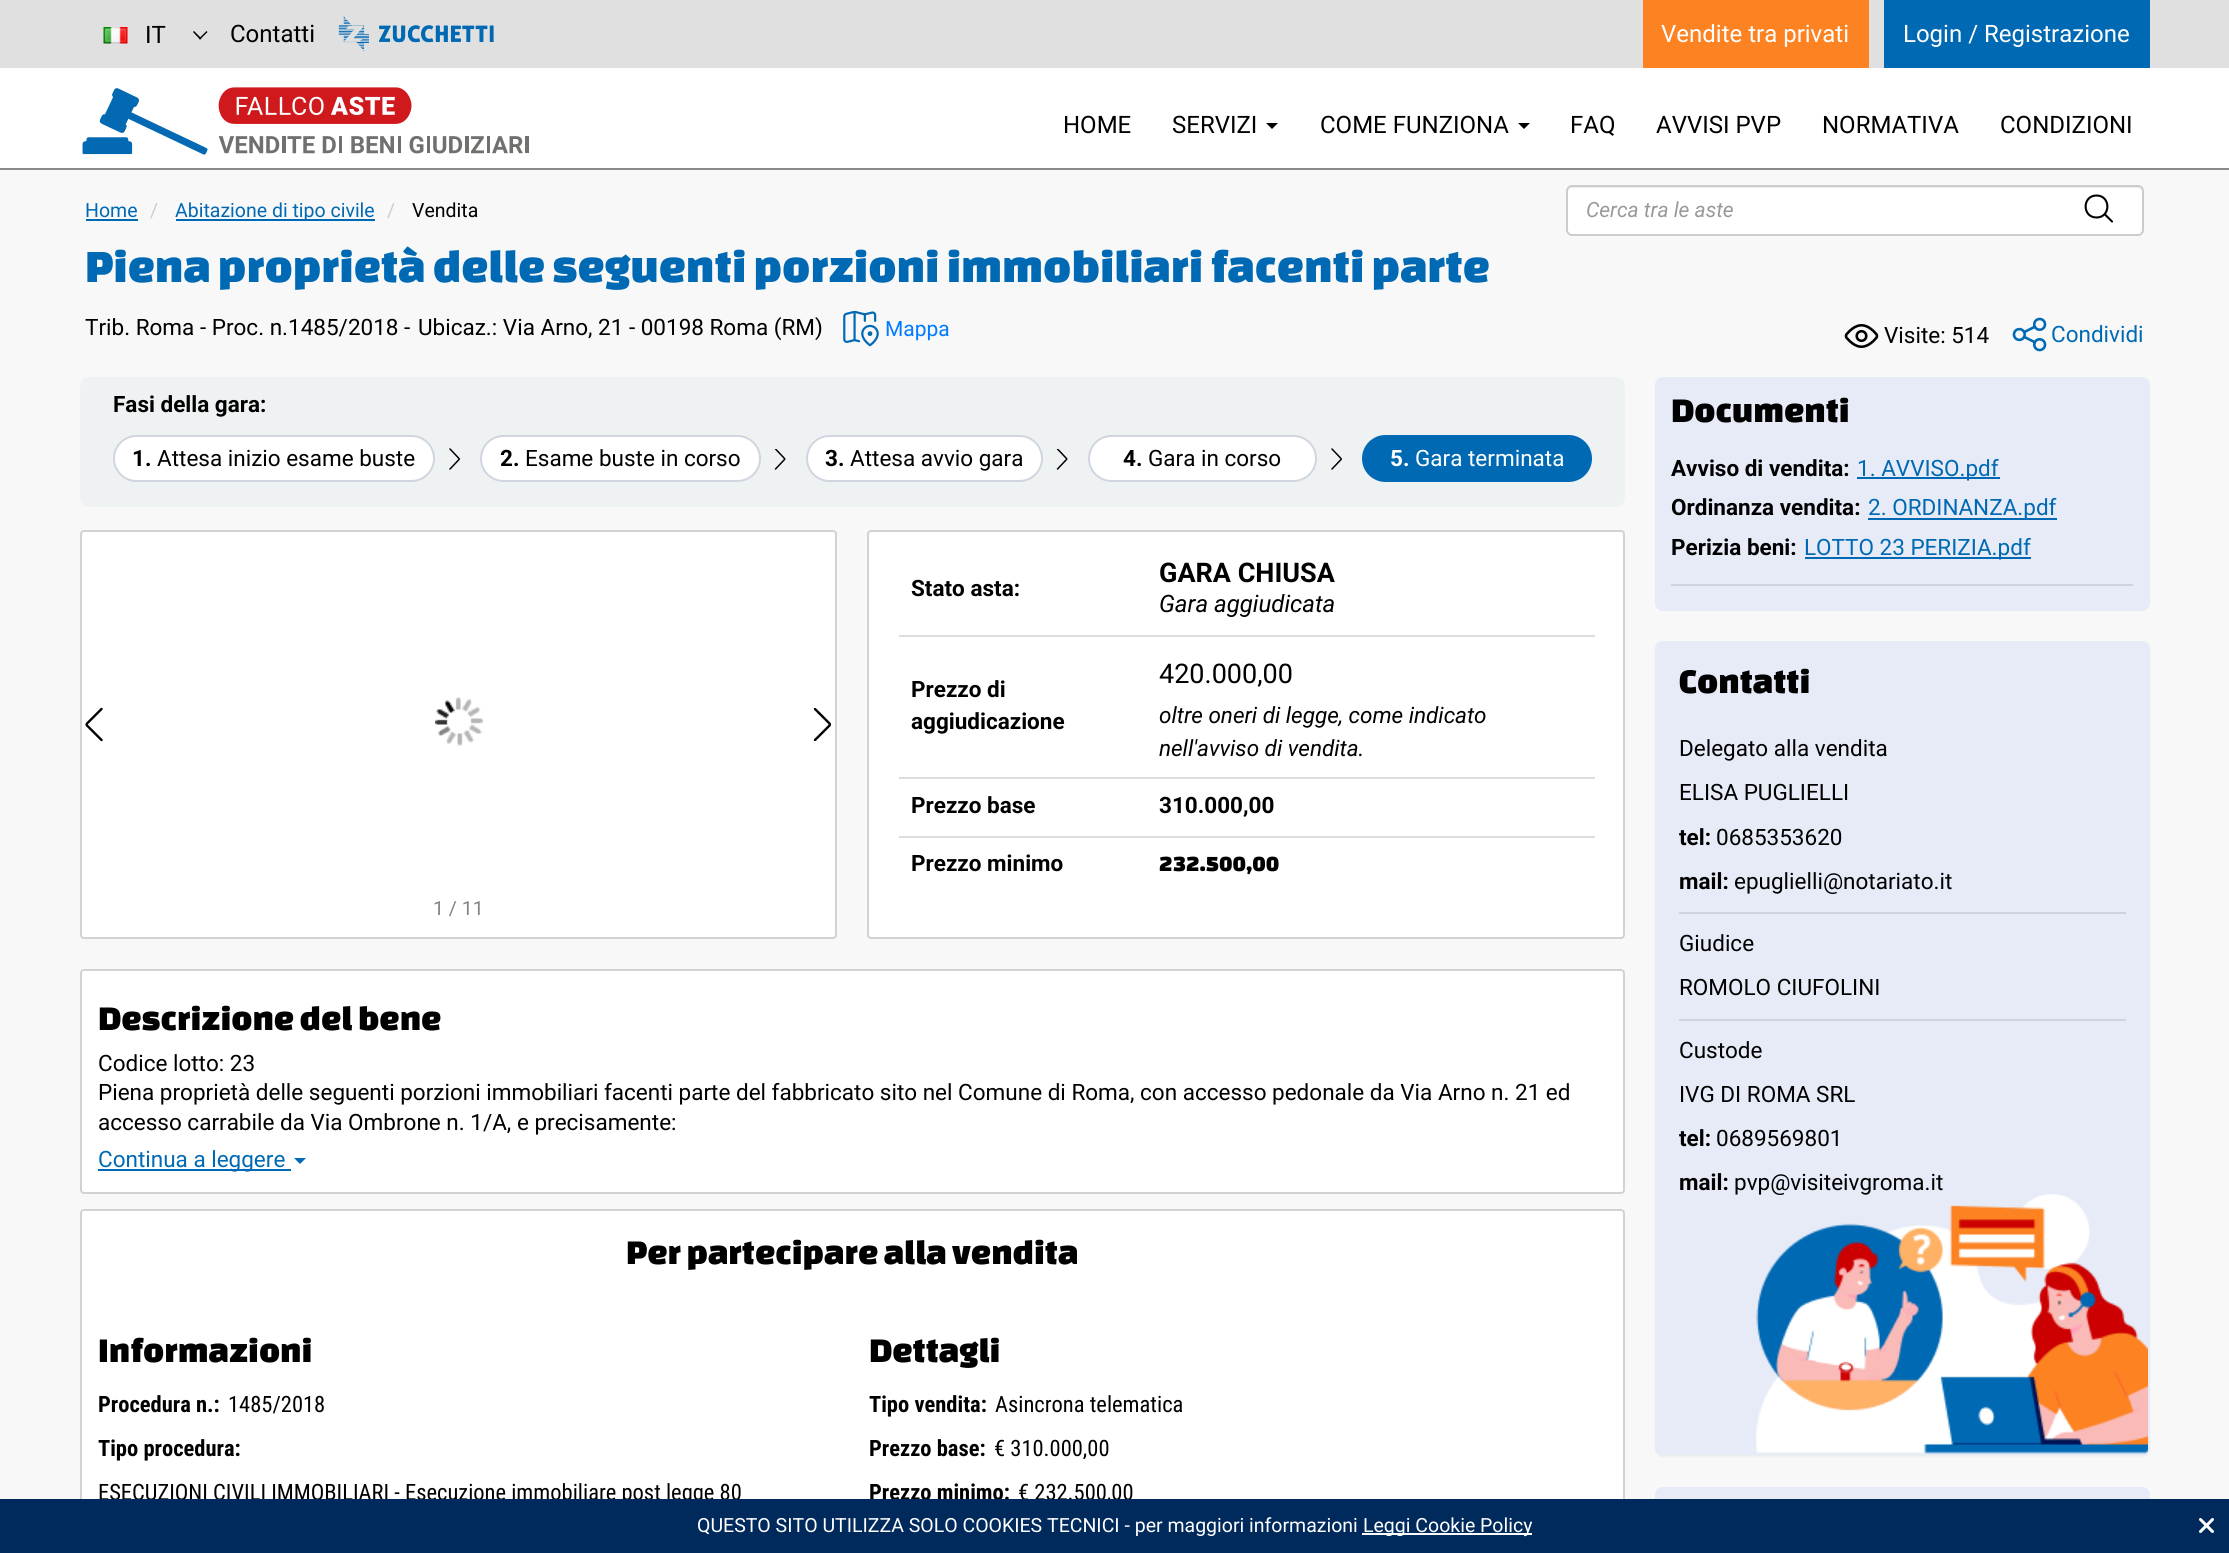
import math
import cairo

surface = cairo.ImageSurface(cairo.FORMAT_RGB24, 2229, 1553)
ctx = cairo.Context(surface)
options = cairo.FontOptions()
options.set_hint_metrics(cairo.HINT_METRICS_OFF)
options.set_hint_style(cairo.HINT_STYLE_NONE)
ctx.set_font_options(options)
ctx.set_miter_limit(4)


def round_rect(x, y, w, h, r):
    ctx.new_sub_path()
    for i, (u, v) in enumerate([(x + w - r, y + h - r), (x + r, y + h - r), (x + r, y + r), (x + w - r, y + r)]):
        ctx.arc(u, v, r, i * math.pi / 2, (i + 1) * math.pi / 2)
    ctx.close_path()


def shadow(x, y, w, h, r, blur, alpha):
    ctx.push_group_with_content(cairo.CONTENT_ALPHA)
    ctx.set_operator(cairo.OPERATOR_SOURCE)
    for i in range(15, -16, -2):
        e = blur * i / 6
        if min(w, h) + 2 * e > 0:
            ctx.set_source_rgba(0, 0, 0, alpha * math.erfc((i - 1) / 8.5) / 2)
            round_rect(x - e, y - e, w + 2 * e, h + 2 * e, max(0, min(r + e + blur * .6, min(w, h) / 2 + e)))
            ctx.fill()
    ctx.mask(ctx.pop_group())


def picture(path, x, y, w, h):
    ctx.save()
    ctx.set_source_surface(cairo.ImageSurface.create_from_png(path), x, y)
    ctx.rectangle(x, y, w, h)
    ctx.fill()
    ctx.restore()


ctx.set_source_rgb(0.969, 0.969, 0.973)
ctx.paint()
ctx.set_source_rgb(0.878, 0.878, 0.878)
ctx.rectangle(0, 0, 2229, 68)
ctx.fill()
picture("img1.png", 103, 27, 25, 17)
ctx.select_font_face("Roboto")
ctx.set_font_size(24)
ctx.set_source_rgb(0, 0, 0)
ctx.move_to(145, 43)
ctx.show_text("IT")
ctx.new_path()
ctx.move_to(206.5, 31)
ctx.line_to(207.5, 32)
ctx.line_to(200, 39.5)
ctx.line_to(199, 38.5)
ctx.close_path()
ctx.fill()
ctx.new_path()
ctx.move_to(194, 31)
ctx.line_to(201.5, 38.5)
ctx.line_to(200, 39.5)
ctx.line_to(193, 32)
ctx.close_path()
ctx.fill()
ctx.move_to(230, 42)
ctx.show_text("Contatti")
picture("img2.png", 338, 16, 156, 35)
ctx.set_source_rgb(0.988, 0.51, 0.133)
ctx.rectangle(1643, 0, 226, 68)
ctx.fill()
ctx.set_source_rgb(1, 1, 1)
ctx.move_to(1661, 42)
ctx.show_text("Vendite tra privati")
ctx.set_source_rgb(0, 0.412, 0.702)
ctx.rectangle(1884, 0, 266, 68)
ctx.fill()
ctx.set_source_rgb(1, 1, 1)
ctx.move_to(1903, 42)
ctx.show_text("Login / Registrazione")
ctx.rectangle(0, 68, 2229, 100)
ctx.fill()
ctx.set_source_rgb(0.541, 0.541, 0.541)
ctx.rectangle(0, 168, 2229, 2)
ctx.fill()
picture("img3.png", 82, 87, 447, 68)
ctx.set_source_rgb(0, 0, 0)
ctx.move_to(1063, 133)
ctx.show_text("HOME")
ctx.move_to(1172, 133)
ctx.show_text("SERVIZI")
ctx.new_path()
ctx.move_to(1266, 123)
ctx.line_to(1278, 123)
ctx.line_to(1272, 129)
ctx.close_path()
ctx.fill()
ctx.move_to(1320, 133)
ctx.show_text("COME FUNZIONA")
ctx.new_path()
ctx.move_to(1518, 123)
ctx.line_to(1530, 123)
ctx.line_to(1524, 129)
ctx.close_path()
ctx.fill()
ctx.move_to(1570, 133)
ctx.show_text("FAQ")
ctx.move_to(1656, 133)
ctx.show_text("AVVISI PVP")
ctx.move_to(1822, 133)
ctx.show_text("NORMATIVA")
ctx.move_to(2000, 133)
ctx.show_text("CONDIZIONI")
ctx.set_font_size(19.5)
ctx.set_source_rgb(0, 0.412, 0.702)
ctx.move_to(85, 217)
ctx.show_text("Home")
ctx.rectangle(86, 219, 52, 2)
ctx.fill()
ctx.set_source_rgb(0.8, 0.8, 0.8)
ctx.move_to(150, 217)
ctx.show_text("/")
ctx.set_source_rgb(0, 0.412, 0.702)
ctx.rectangle(176, 219, 199, 2)
ctx.fill()
ctx.move_to(175, 217)
ctx.show_text("Abitazione di tipo civile")
ctx.set_source_rgb(0.8, 0.8, 0.8)
ctx.move_to(387, 217)
ctx.show_text("/")
ctx.set_source_rgb(0, 0, 0)
ctx.move_to(412, 217)
ctx.show_text("Vendita")
ctx.select_font_face("Changa One")
ctx.set_font_size(48)
ctx.set_source_rgb(0, 0.412, 0.702)
ctx.move_to(85, 282)
ctx.show_text("Piena proprietà delle seguenti porzioni immobiliari facenti parte")
ctx.select_font_face("Roboto")
ctx.set_font_size(22.5)
ctx.set_source_rgb(0, 0, 0)
ctx.move_to(85, 335)
ctx.show_text("Trib. Roma - Proc. n.1485/2018 -")
ctx.move_to(418, 335)
ctx.show_text("Ubicaz.: Via Arno, 21 - 00198 Roma (RM)")
picture("img4.png", 843, 311, 36, 36)
ctx.set_font_size(21)
ctx.set_source_rgb(0, 0.482, 1)
ctx.move_to(885, 336)
ctx.show_text("Mappa")
ctx.set_source_rgb(1, 1, 1)
round_rect(1566, 185, 578, 51, 6)
ctx.fill()
ctx.set_source_rgb(0.925, 0.925, 0.925)
ctx.new_path()
ctx.move_to(1572, 188)
ctx.line_to(2138, 188)
ctx.curve_to(2140, 188, 2142, 190, 2142, 192)
ctx.curve_to(2142, 189, 2140, 186, 2137, 186)
ctx.line_to(1573, 186)
ctx.curve_to(1570, 186, 1568, 189, 1568, 192)
ctx.curve_to(1568, 190, 1570, 188, 1572, 188)
ctx.close_path()
ctx.fill()
round_rect(1567, 186, 576, 49, 5)
ctx.set_source_rgb(0.8, 0.8, 0.8)
ctx.stroke()
ctx.select_font_face("Roboto", cairo.FONT_SLANT_ITALIC)
ctx.set_source_rgb(0.6, 0.6, 0.6)
ctx.move_to(1586, 217)
ctx.show_text("Cerca tra le aste")
ctx.new_path()
ctx.move_to(2096.5, 217.5)
ctx.curve_to(2111, 217.5, 2111, 195.5, 2096.5, 195.5)
ctx.curve_to(2082, 195.5, 2082, 217.5, 2096.5, 217.5)
ctx.close_path()
ctx.move_to(2112, 221.5)
ctx.line_to(2105, 214.5)
ctx.set_source_rgb(0, 0, 0)
ctx.set_line_width(2.1)
ctx.set_line_cap(cairo.LINE_CAP_ROUND)
ctx.set_line_join(cairo.LINE_JOIN_ROUND)
ctx.stroke()
picture("img5.png", 1844, 324, 35, 24)
ctx.select_font_face("Roboto")
ctx.set_font_size(22.5)
ctx.move_to(1884, 343)
ctx.show_text("Visite: 514")
picture("img6.png", 2012, 317, 35, 35)
ctx.set_source_rgb(0, 0.412, 0.702)
ctx.move_to(2051, 342)
ctx.show_text("Condividi")
ctx.set_source_rgb(0.937, 0.949, 0.953)
round_rect(80, 377, 1545, 130, 9)
ctx.fill()
ctx.select_font_face("Roboto", cairo.FONT_SLANT_NORMAL, cairo.FONT_WEIGHT_BOLD)
ctx.set_source_rgb(0, 0, 0)
ctx.move_to(113, 412)
ctx.show_text("Fasi della gara:")
ctx.set_source_rgb(1, 1, 1)
round_rect(114, 436, 320, 45, 22.5)
ctx.fill_preserve()
ctx.set_source_rgb(0.82, 0.835, 0.878)
ctx.set_line_width(2)
ctx.set_line_cap(cairo.LINE_CAP_BUTT)
ctx.set_line_join(cairo.LINE_JOIN_MITER)
ctx.stroke()
ctx.set_source_rgb(0, 0, 0)
ctx.move_to(132, 466)
ctx.show_text("1.")
ctx.select_font_face("Roboto")
ctx.move_to(157, 466)
ctx.show_text("Attesa inizio esame buste")
ctx.new_path()
ctx.move_to(450, 449)
ctx.line_to(459, 458.5)
ctx.curve_to(459.5, 459, 459.5, 459, 459, 459.5)
ctx.line_to(450, 469)
ctx.set_line_width(1.5)
ctx.set_line_cap(cairo.LINE_CAP_ROUND)
ctx.set_line_join(cairo.LINE_JOIN_ROUND)
ctx.stroke()
ctx.set_source_rgb(1, 1, 1)
round_rect(481, 436, 279, 45, 22.5)
ctx.fill_preserve()
ctx.set_source_rgb(0.82, 0.835, 0.878)
ctx.set_line_width(2)
ctx.set_line_cap(cairo.LINE_CAP_BUTT)
ctx.set_line_join(cairo.LINE_JOIN_MITER)
ctx.stroke()
ctx.select_font_face("Roboto", cairo.FONT_SLANT_NORMAL, cairo.FONT_WEIGHT_BOLD)
ctx.set_source_rgb(0, 0, 0)
ctx.move_to(500, 466)
ctx.show_text("2.")
ctx.select_font_face("Roboto")
ctx.move_to(525, 466)
ctx.show_text("Esame buste in corso")
ctx.save()
ctx.rectangle(770, 449, 21, 21)
ctx.clip()
ctx.new_path()
ctx.move_to(775.5, 449)
ctx.line_to(784.5, 458.5)
ctx.curve_to(785, 459, 785, 459, 784.5, 459.5)
ctx.line_to(775.5, 469)
ctx.set_line_width(1.5)
ctx.set_line_cap(cairo.LINE_CAP_ROUND)
ctx.set_line_join(cairo.LINE_JOIN_ROUND)
ctx.stroke()
ctx.restore()
ctx.set_source_rgb(1, 1, 1)
round_rect(807, 436, 235, 45, 22.5)
ctx.fill_preserve()
ctx.set_source_rgb(0.82, 0.835, 0.878)
ctx.stroke()
ctx.select_font_face("Roboto", cairo.FONT_SLANT_NORMAL, cairo.FONT_WEIGHT_BOLD)
ctx.set_source_rgb(0, 0, 0)
ctx.move_to(825, 466)
ctx.show_text("3.")
ctx.select_font_face("Roboto")
ctx.move_to(850, 466)
ctx.show_text("Attesa avvio gara")
ctx.save()
ctx.rectangle(1052, 449, 21, 21)
ctx.clip()
ctx.new_path()
ctx.move_to(1057.5, 449)
ctx.line_to(1066.5, 458.5)
ctx.curve_to(1067, 459, 1067, 459, 1066.5, 459.5)
ctx.line_to(1057.5, 469)
ctx.set_line_width(1.5)
ctx.set_line_cap(cairo.LINE_CAP_ROUND)
ctx.set_line_join(cairo.LINE_JOIN_ROUND)
ctx.stroke()
ctx.restore()
ctx.set_source_rgb(1, 1, 1)
round_rect(1089, 436, 227, 45, 22.5)
ctx.fill_preserve()
ctx.set_source_rgb(0.82, 0.835, 0.878)
ctx.stroke()
ctx.select_font_face("Roboto", cairo.FONT_SLANT_NORMAL, cairo.FONT_WEIGHT_BOLD)
ctx.set_source_rgb(0, 0, 0)
ctx.move_to(1123, 466)
ctx.show_text("4.")
ctx.select_font_face("Roboto")
ctx.move_to(1148, 466)
ctx.show_text("Gara in corso")
ctx.new_path()
ctx.move_to(1332, 449)
ctx.line_to(1341, 458.5)
ctx.curve_to(1341.5, 459, 1341.5, 459, 1341, 459.5)
ctx.line_to(1332, 469)
ctx.set_line_width(1.5)
ctx.set_line_cap(cairo.LINE_CAP_ROUND)
ctx.set_line_join(cairo.LINE_JOIN_ROUND)
ctx.stroke()
ctx.set_source_rgb(0, 0.412, 0.706)
round_rect(1362, 435, 230, 47, 23.5)
ctx.fill()
ctx.select_font_face("Roboto", cairo.FONT_SLANT_NORMAL, cairo.FONT_WEIGHT_BOLD)
ctx.set_source_rgb(1, 1, 1)
ctx.move_to(1390, 466)
ctx.show_text("5.")
ctx.select_font_face("Roboto")
ctx.move_to(1415, 466)
ctx.show_text("Gara terminata")
round_rect(868, 531, 756, 407, 3)
ctx.fill_preserve()
ctx.set_source_rgb(0.824, 0.824, 0.824)
ctx.set_line_width(2)
ctx.set_line_cap(cairo.LINE_CAP_BUTT)
ctx.set_line_join(cairo.LINE_JOIN_MITER)
ctx.stroke()
ctx.select_font_face("Roboto", cairo.FONT_SLANT_NORMAL, cairo.FONT_WEIGHT_BOLD)
ctx.set_source_rgb(0, 0, 0)
ctx.move_to(911, 596)
ctx.show_text("Stato asta:")
ctx.set_font_size(27)
ctx.move_to(1159, 582)
ctx.show_text("GARA CHIUSA")
ctx.select_font_face("Roboto", cairo.FONT_SLANT_ITALIC)
ctx.set_font_size(24)
ctx.move_to(1159, 612)
ctx.show_text("Gara aggiudicata")
ctx.select_font_face("Roboto", cairo.FONT_SLANT_NORMAL, cairo.FONT_WEIGHT_BOLD)
ctx.set_font_size(22.5)
ctx.move_to(911, 697)
ctx.show_text("Prezzo di")
ctx.move_to(911, 729)
ctx.show_text("aggiudicazione")
ctx.set_source_rgb(0.867, 0.867, 0.867)
ctx.rectangle(899, 635, 696, 2)
ctx.fill()
ctx.select_font_face("Roboto")
ctx.set_font_size(27)
ctx.set_source_rgb(0, 0, 0)
ctx.move_to(1159, 683)
ctx.show_text("420.000,00")
ctx.select_font_face("Roboto", cairo.FONT_SLANT_ITALIC)
ctx.set_font_size(22.5)
ctx.move_to(1159, 723)
ctx.show_text("oltre oneri di legge, come indicato")
ctx.move_to(1159, 756)
ctx.show_text("nell'avviso di vendita.")
ctx.select_font_face("Roboto", cairo.FONT_SLANT_NORMAL, cairo.FONT_WEIGHT_BOLD)
ctx.move_to(911, 813)
ctx.show_text("Prezzo base")
ctx.set_source_rgb(0.867, 0.867, 0.867)
ctx.rectangle(899, 777, 696, 2)
ctx.fill()
ctx.set_source_rgb(0, 0, 0)
ctx.move_to(1159, 813)
ctx.show_text("310.000,00")
ctx.move_to(911, 871)
ctx.show_text("Prezzo minimo")
ctx.set_source_rgb(0.867, 0.867, 0.867)
ctx.rectangle(899, 836, 696, 2)
ctx.fill()
ctx.select_font_face("Changa One")
ctx.set_source_rgb(0, 0, 0)
ctx.move_to(1159, 871)
ctx.show_text("232.500,00")
ctx.set_source_rgb(1, 1, 1)
round_rect(81, 531, 755, 407, 3)
ctx.fill_preserve()
ctx.set_source_rgb(0.824, 0.824, 0.824)
ctx.stroke()
picture("img7.png", 435, 697, 48, 49)
ctx.new_path()
ctx.move_to(101.5, 709)
ctx.line_to(87, 723.5)
ctx.curve_to(86.5, 724, 86.5, 725, 87, 725.5)
ctx.line_to(101.5, 740)
ctx.set_source_rgb(0, 0, 0)
ctx.set_line_width(2.4)
ctx.set_line_cap(cairo.LINE_CAP_ROUND)
ctx.set_line_join(cairo.LINE_JOIN_ROUND)
ctx.stroke()
ctx.save()
ctx.rectangle(806, 708, 33, 33)
ctx.clip()
ctx.new_path()
ctx.move_to(815, 709)
ctx.line_to(829.5, 723.5)
ctx.curve_to(830, 724, 830, 725, 829.5, 725.5)
ctx.line_to(815, 740)
ctx.stroke()
ctx.restore()
ctx.select_font_face("Roboto")
ctx.set_font_size(19.5)
ctx.set_source_rgb(0.514, 0.514, 0.514)
ctx.move_to(433, 915)
ctx.show_text("1 / 11")
ctx.set_source_rgb(1, 1, 1)
round_rect(81, 970, 1543, 223, 3)
ctx.fill_preserve()
ctx.set_source_rgb(0.824, 0.824, 0.824)
ctx.set_line_width(2)
ctx.set_line_cap(cairo.LINE_CAP_BUTT)
ctx.set_line_join(cairo.LINE_JOIN_MITER)
ctx.stroke()
ctx.select_font_face("Changa One")
ctx.set_font_size(36)
ctx.set_source_rgb(0, 0, 0)
ctx.move_to(98, 1030)
ctx.show_text("Descrizione del bene")
ctx.select_font_face("Roboto")
ctx.set_font_size(22.5)
ctx.move_to(98, 1071)
ctx.show_text("Codice lotto: 23")
ctx.move_to(98, 1100)
ctx.show_text("Piena proprietà delle seguenti porzioni immobiliari facenti parte del fabbricato sito nel Comune di Roma, con accesso pedonale da Via Arno n. 21 ed")
ctx.move_to(98, 1130)
ctx.show_text("accesso carrabile da Via Ombrone n. 1/A, e precisamente:")
ctx.set_source_rgb(0, 0.412, 0.702)
ctx.rectangle(98, 1169, 193, 2)
ctx.fill()
ctx.move_to(98, 1167)
ctx.show_text("Continua a leggere")
ctx.new_path()
ctx.move_to(294, 1158)
ctx.line_to(306, 1158)
ctx.line_to(300, 1164)
ctx.close_path()
ctx.fill()
ctx.set_source_rgb(1, 1, 1)
round_rect(81, 1210, 1543, 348, 3)
ctx.fill_preserve()
ctx.set_source_rgb(0.824, 0.824, 0.824)
ctx.stroke()
ctx.select_font_face("Changa One")
ctx.set_font_size(36)
ctx.set_source_rgb(0, 0, 0)
ctx.move_to(626, 1264)
ctx.show_text("Per partecipare alla vendita")
ctx.move_to(98, 1362)
ctx.show_text("Informazioni")
ctx.select_font_face("Roboto Condensed", cairo.FONT_SLANT_NORMAL, cairo.FONT_WEIGHT_BOLD)
ctx.set_font_size(22.5)
ctx.move_to(98, 1412)
ctx.show_text("Procedura n.:")
ctx.select_font_face("Roboto Condensed")
ctx.move_to(228, 1412)
ctx.show_text("1485/2018")
ctx.select_font_face("Roboto Condensed", cairo.FONT_SLANT_NORMAL, cairo.FONT_WEIGHT_BOLD)
ctx.move_to(98, 1456)
ctx.show_text("Tipo procedura:")
ctx.select_font_face("Roboto Condensed")
ctx.move_to(98, 1500)
ctx.show_text("ESECUZIONI CIVILI IMMOBILIARI - Esecuzione immobiliare post legge 80")
ctx.select_font_face("Changa One")
ctx.set_font_size(36)
ctx.move_to(869, 1362)
ctx.show_text("Dettagli")
ctx.select_font_face("Roboto Condensed", cairo.FONT_SLANT_NORMAL, cairo.FONT_WEIGHT_BOLD)
ctx.set_font_size(22.5)
ctx.move_to(869, 1412)
ctx.show_text("Tipo vendita:")
ctx.select_font_face("Roboto Condensed")
ctx.move_to(995, 1412)
ctx.show_text("Asincrona telematica")
ctx.select_font_face("Roboto Condensed", cairo.FONT_SLANT_NORMAL, cairo.FONT_WEIGHT_BOLD)
ctx.move_to(869, 1456)
ctx.show_text("Prezzo base:")
ctx.select_font_face("Roboto Condensed")
ctx.move_to(994, 1456)
ctx.show_text("€ 310.000,00")
ctx.select_font_face("Roboto Condensed", cairo.FONT_SLANT_NORMAL, cairo.FONT_WEIGHT_BOLD)
ctx.move_to(869, 1500)
ctx.show_text("Prezzo minimo:")
ctx.select_font_face("Roboto Condensed")
ctx.move_to(1018, 1500)
ctx.show_text("€ 232.500,00")
ctx.set_source_rgb(0.902, 0.918, 0.965)
round_rect(1655, 377, 495, 234, 8)
ctx.fill()
ctx.select_font_face("Changa One")
ctx.set_font_size(36)
ctx.set_source_rgb(0, 0, 0)
ctx.move_to(1671, 422)
ctx.show_text("Documenti")
ctx.select_font_face("Roboto", cairo.FONT_SLANT_NORMAL, cairo.FONT_WEIGHT_BOLD)
ctx.set_font_size(22.5)
ctx.move_to(1671, 476)
ctx.show_text("Avviso di vendita:")
ctx.set_source_rgb(0, 0.412, 0.702)
ctx.rectangle(1857, 477, 143, 2)
ctx.fill()
ctx.select_font_face("Roboto")
ctx.move_to(1857, 476)
ctx.show_text("1. AVVISO.pdf")
ctx.select_font_face("Roboto", cairo.FONT_SLANT_NORMAL, cairo.FONT_WEIGHT_BOLD)
ctx.set_source_rgb(0, 0, 0)
ctx.move_to(1671, 515)
ctx.show_text("Ordinanza vendita:")
ctx.set_source_rgb(0, 0.412, 0.702)
ctx.rectangle(1868, 518, 189, 2)
ctx.fill()
ctx.select_font_face("Roboto")
ctx.move_to(1868, 515)
ctx.show_text("2. ORDINANZA.pdf")
ctx.select_font_face("Roboto", cairo.FONT_SLANT_NORMAL, cairo.FONT_WEIGHT_BOLD)
ctx.set_source_rgb(0, 0, 0)
ctx.move_to(1671, 555)
ctx.show_text("Perizia beni:")
ctx.set_source_rgb(0, 0.412, 0.702)
ctx.rectangle(1805, 557, 226, 2)
ctx.fill()
ctx.select_font_face("Roboto")
ctx.move_to(1804, 555)
ctx.show_text("LOTTO 23 PERIZIA.pdf")
ctx.set_source_rgb(0.812, 0.827, 0.867)
ctx.rectangle(1671, 584, 462, 2)
ctx.fill()
ctx.set_source_rgb(0, 0, 0)
shadow(1655, 642, 495, 815, 8, 1, 0.05)
ctx.set_source_rgb(0.902, 0.918, 0.965)
round_rect(1655, 641, 495, 814, 8)
ctx.fill()
picture("img8.png", 1755, 1194, 393, 260)
ctx.select_font_face("Changa One")
ctx.set_font_size(36)
ctx.set_source_rgb(0, 0, 0)
ctx.move_to(1679, 693)
ctx.show_text("Contatti")
ctx.select_font_face("Roboto")
ctx.set_font_size(22.5)
ctx.move_to(1679, 756)
ctx.show_text("Delegato alla vendita")
ctx.move_to(1679, 800)
ctx.show_text("ELISA PUGLIELLI")
ctx.select_font_face("Roboto", cairo.FONT_SLANT_NORMAL, cairo.FONT_WEIGHT_BOLD)
ctx.move_to(1679, 845)
ctx.show_text("tel:")
ctx.select_font_face("Roboto")
ctx.move_to(1716, 845)
ctx.show_text("0685353620")
ctx.select_font_face("Roboto", cairo.FONT_SLANT_NORMAL, cairo.FONT_WEIGHT_BOLD)
ctx.move_to(1679, 889)
ctx.show_text("mail:")
ctx.select_font_face("Roboto")
ctx.move_to(1734, 889)
ctx.show_text("epuglielli@notariato.it")
ctx.set_source_rgb(0.812, 0.827, 0.867)
ctx.rectangle(1679, 912, 447, 2)
ctx.fill()
ctx.set_source_rgb(0, 0, 0)
ctx.move_to(1679, 951)
ctx.show_text("Giudice")
ctx.move_to(1679, 995)
ctx.show_text("ROMOLO CIUFOLINI")
ctx.set_source_rgb(0.812, 0.827, 0.867)
ctx.rectangle(1679, 1019, 447, 2)
ctx.fill()
ctx.set_source_rgb(0, 0, 0)
ctx.move_to(1679, 1058)
ctx.show_text("Custode")
ctx.move_to(1679, 1102)
ctx.show_text("IVG DI ROMA SRL")
ctx.select_font_face("Roboto", cairo.FONT_SLANT_NORMAL, cairo.FONT_WEIGHT_BOLD)
ctx.move_to(1679, 1146)
ctx.show_text("tel:")
ctx.select_font_face("Roboto")
ctx.move_to(1716, 1146)
ctx.show_text("0689569801")
ctx.select_font_face("Roboto", cairo.FONT_SLANT_NORMAL, cairo.FONT_WEIGHT_BOLD)
ctx.move_to(1679, 1190)
ctx.show_text("mail:")
ctx.select_font_face("Roboto")
ctx.move_to(1734, 1190)
ctx.show_text("pvp@visiteivgroma.it")
ctx.set_source_rgb(0.902, 0.918, 0.965)
round_rect(1655, 1487, 495, 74, 8)
ctx.fill()
ctx.set_source_rgb(0, 0.165, 0.361)
ctx.rectangle(0, 1499, 2229, 54)
ctx.fill()
ctx.set_font_size(19.5)
ctx.set_source_rgb(1, 1, 1)
ctx.move_to(697, 1532)
ctx.show_text("QUESTO SITO UTILIZZA SOLO COOKIES TECNICI - per maggiori informazioni")
ctx.rectangle(1362, 1533, 170, 2)
ctx.fill()
ctx.move_to(1363, 1532)
ctx.show_text("Leggi Cookie Policy")
picture("img9.png", 2199, 1518, 15, 15)
surface.write_to_png("page.png")
